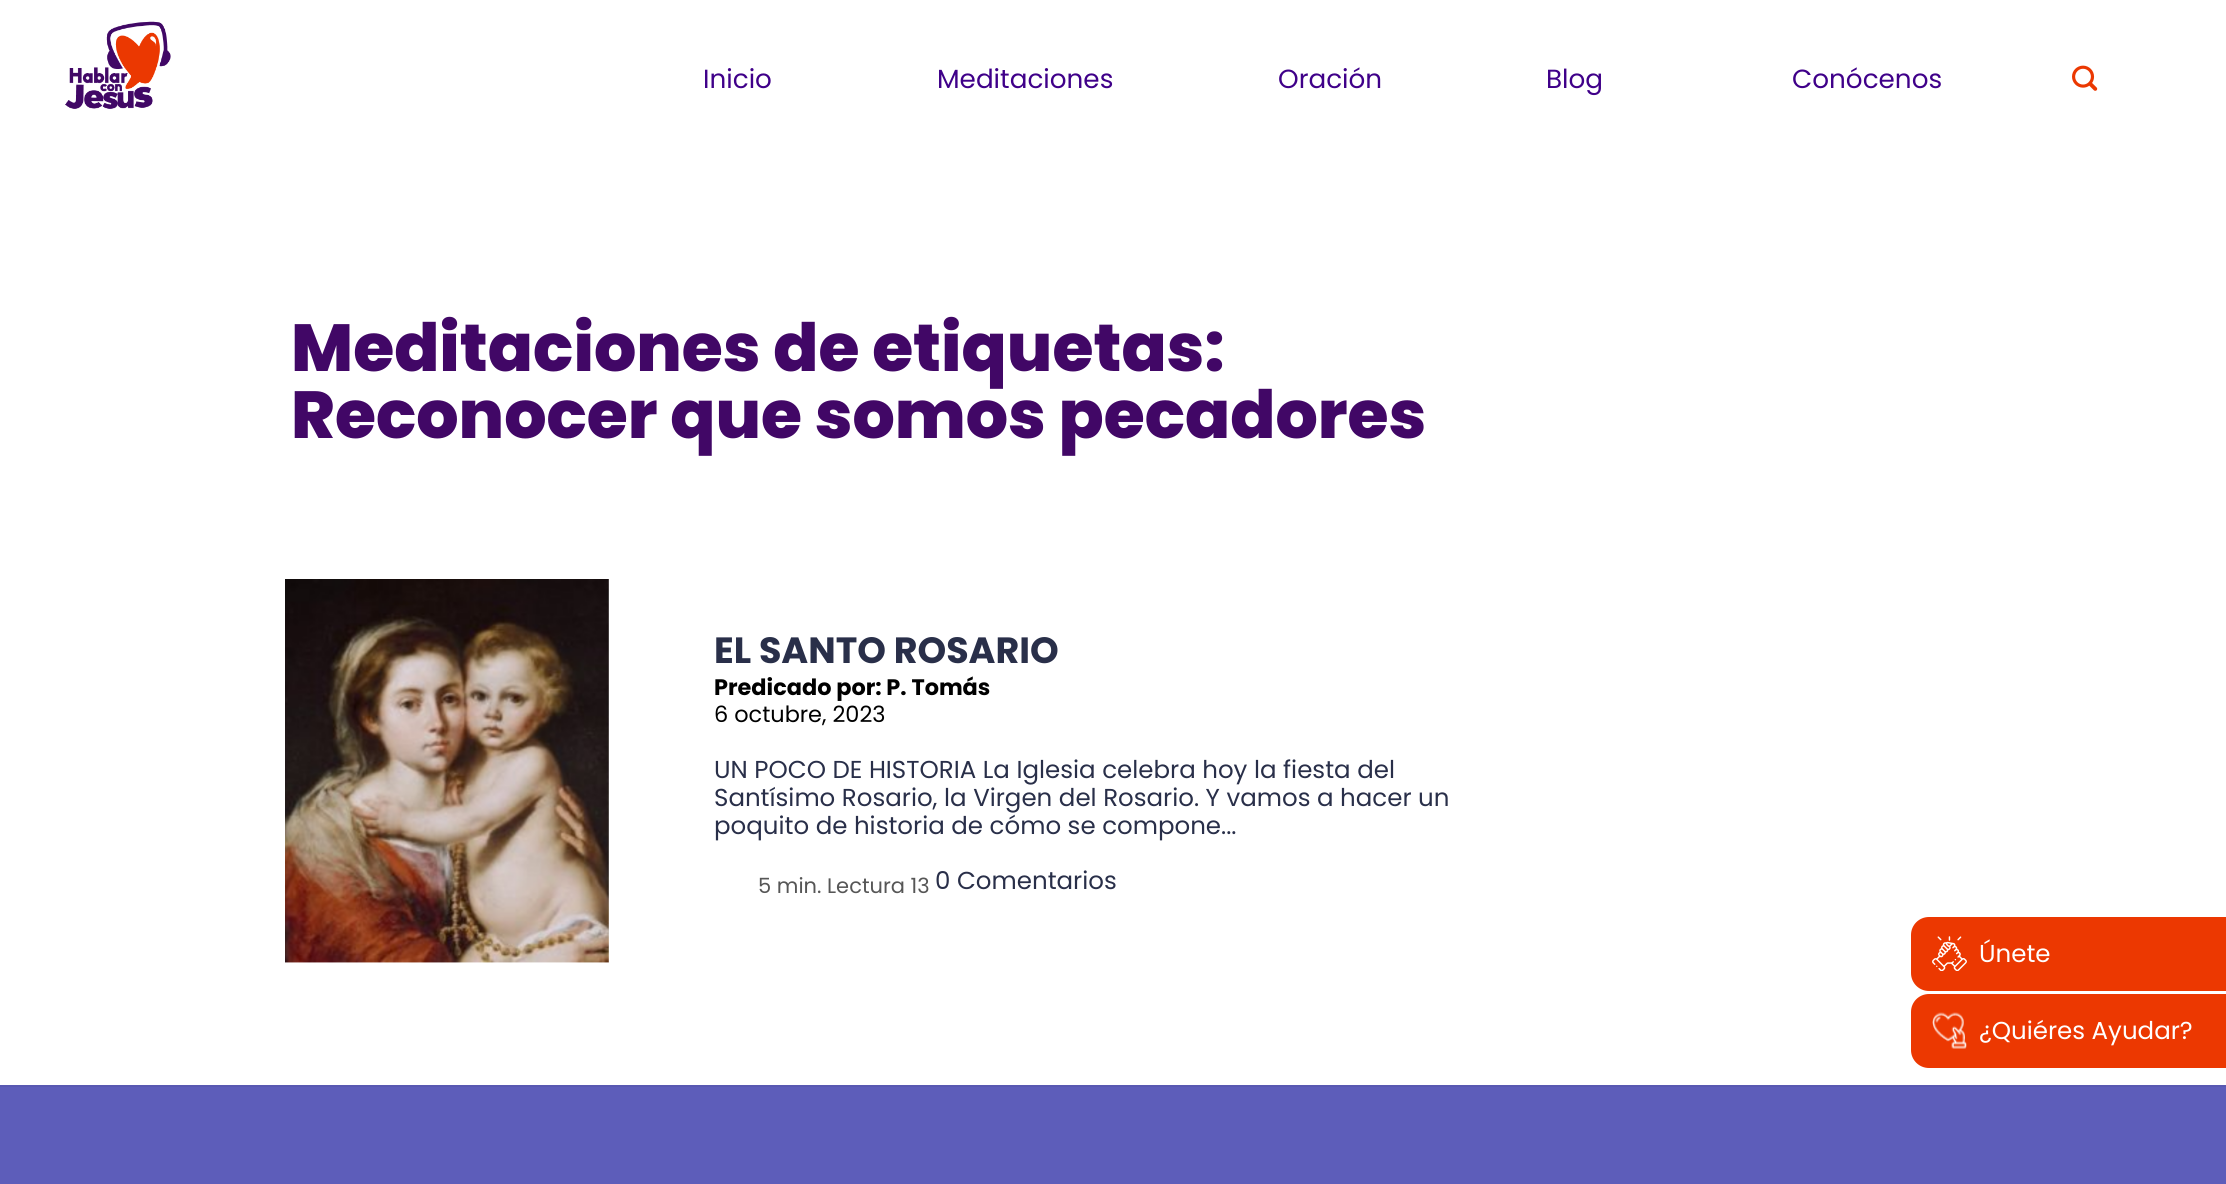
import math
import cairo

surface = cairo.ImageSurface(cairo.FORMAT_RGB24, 2226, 1184)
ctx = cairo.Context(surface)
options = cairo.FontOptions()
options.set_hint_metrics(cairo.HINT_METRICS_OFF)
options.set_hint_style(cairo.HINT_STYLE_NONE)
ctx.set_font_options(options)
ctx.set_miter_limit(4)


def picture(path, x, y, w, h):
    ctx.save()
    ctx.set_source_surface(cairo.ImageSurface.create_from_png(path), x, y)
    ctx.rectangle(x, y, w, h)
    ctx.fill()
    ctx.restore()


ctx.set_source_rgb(1, 1, 1)
ctx.paint()
picture("img1.png", 65, 21, 106, 88)
ctx.select_font_face("Poppins")
ctx.set_font_size(26.25)
ctx.set_source_rgb(0.247, 0, 0.537)
ctx.move_to(703, 88)
ctx.show_text("Inicio")
ctx.move_to(937, 88)
ctx.show_text("Meditaciones")
ctx.move_to(1278, 88)
ctx.show_text("Oración")
ctx.move_to(1546, 88)
ctx.show_text("Blog")
ctx.move_to(1792, 88)
ctx.show_text("Conócenos")
picture("img2.png", 2072, 65, 26, 26)
ctx.select_font_face("Poppins ExtraBold")
ctx.set_font_size(66.5)
ctx.set_source_rgb(0.255, 0.031, 0.4)
ctx.move_to(291, 371)
ctx.show_text("Meditaciones de etiquetas:")
ctx.move_to(291, 438)
ctx.show_text("Reconocer que somos pecadores")
picture("img3.png", 285, 579, 324, 384)
ctx.select_font_face("Poppins", cairo.FONT_SLANT_NORMAL, cairo.FONT_WEIGHT_BOLD)
ctx.set_font_size(36.5)
ctx.set_source_rgb(0.161, 0.184, 0.286)
ctx.move_to(714, 663)
ctx.show_text("EL SANTO ROSARIO")
ctx.set_font_size(22.4)
ctx.set_source_rgb(0, 0, 0)
ctx.move_to(714, 695)
ctx.show_text("Predicado por: P. Tomás")
ctx.select_font_face("Poppins")
ctx.move_to(714, 722)
ctx.show_text("6 octubre, 2023")
ctx.set_font_size(24.5)
ctx.set_source_rgb(0.161, 0.184, 0.286)
ctx.move_to(714, 778)
ctx.show_text("UN POCO DE HISTORIA La Iglesia celebra hoy la fiesta del")
ctx.move_to(714, 806)
ctx.show_text("Santísimo Rosario, la Virgen del Rosario. Y vamos a hacer un")
ctx.move_to(714, 834)
ctx.show_text("poquito de historia de cómo se compone...")
ctx.set_font_size(21)
ctx.set_source_rgb(0.337, 0.337, 0.337)
ctx.move_to(758, 893)
ctx.show_text("5 min. Lectura 13")
ctx.set_font_size(24.5)
ctx.set_source_rgb(0.161, 0.184, 0.286)
ctx.move_to(935, 889)
ctx.show_text("0 Comentarios")
ctx.set_source_rgb(0.365, 0.365, 0.729)
ctx.rectangle(0, 1087, 2226, 97)
ctx.fill()
ctx.set_source_rgb(0.345, 0.345, 0.694)
ctx.rectangle(0, 1085, 2226, 2)
ctx.fill()
ctx.set_source_rgb(0.922, 0.22, 0.004)
ctx.new_path()
ctx.move_to(1929, 917)
ctx.line_to(2226, 917)
ctx.line_to(2226, 991)
ctx.line_to(1929, 991)
ctx.curve_to(1919, 991, 1911, 983, 1911, 973)
ctx.line_to(1911, 935)
ctx.curve_to(1911, 925, 1919, 917, 1929, 917)
ctx.close_path()
ctx.fill()
picture("img4.png", 1932, 936, 35, 35)
ctx.set_source_rgb(1, 1, 1)
ctx.move_to(1979, 962)
ctx.show_text("Únete")
ctx.set_source_rgb(0.922, 0.22, 0.004)
ctx.new_path()
ctx.move_to(1929, 994)
ctx.line_to(2226, 994)
ctx.line_to(2226, 1068)
ctx.line_to(1929, 1068)
ctx.curve_to(1919, 1068, 1911, 1060, 1911, 1050)
ctx.line_to(1911, 1012)
ctx.curve_to(1911, 1002, 1919, 994, 1929, 994)
ctx.close_path()
ctx.fill()
picture("img5.png", 1932, 1012, 35, 37)
ctx.set_source_rgb(1, 1, 1)
ctx.move_to(1979, 1039)
ctx.show_text("¿Quiéres Ayudar?")
surface.write_to_png("page.png")
